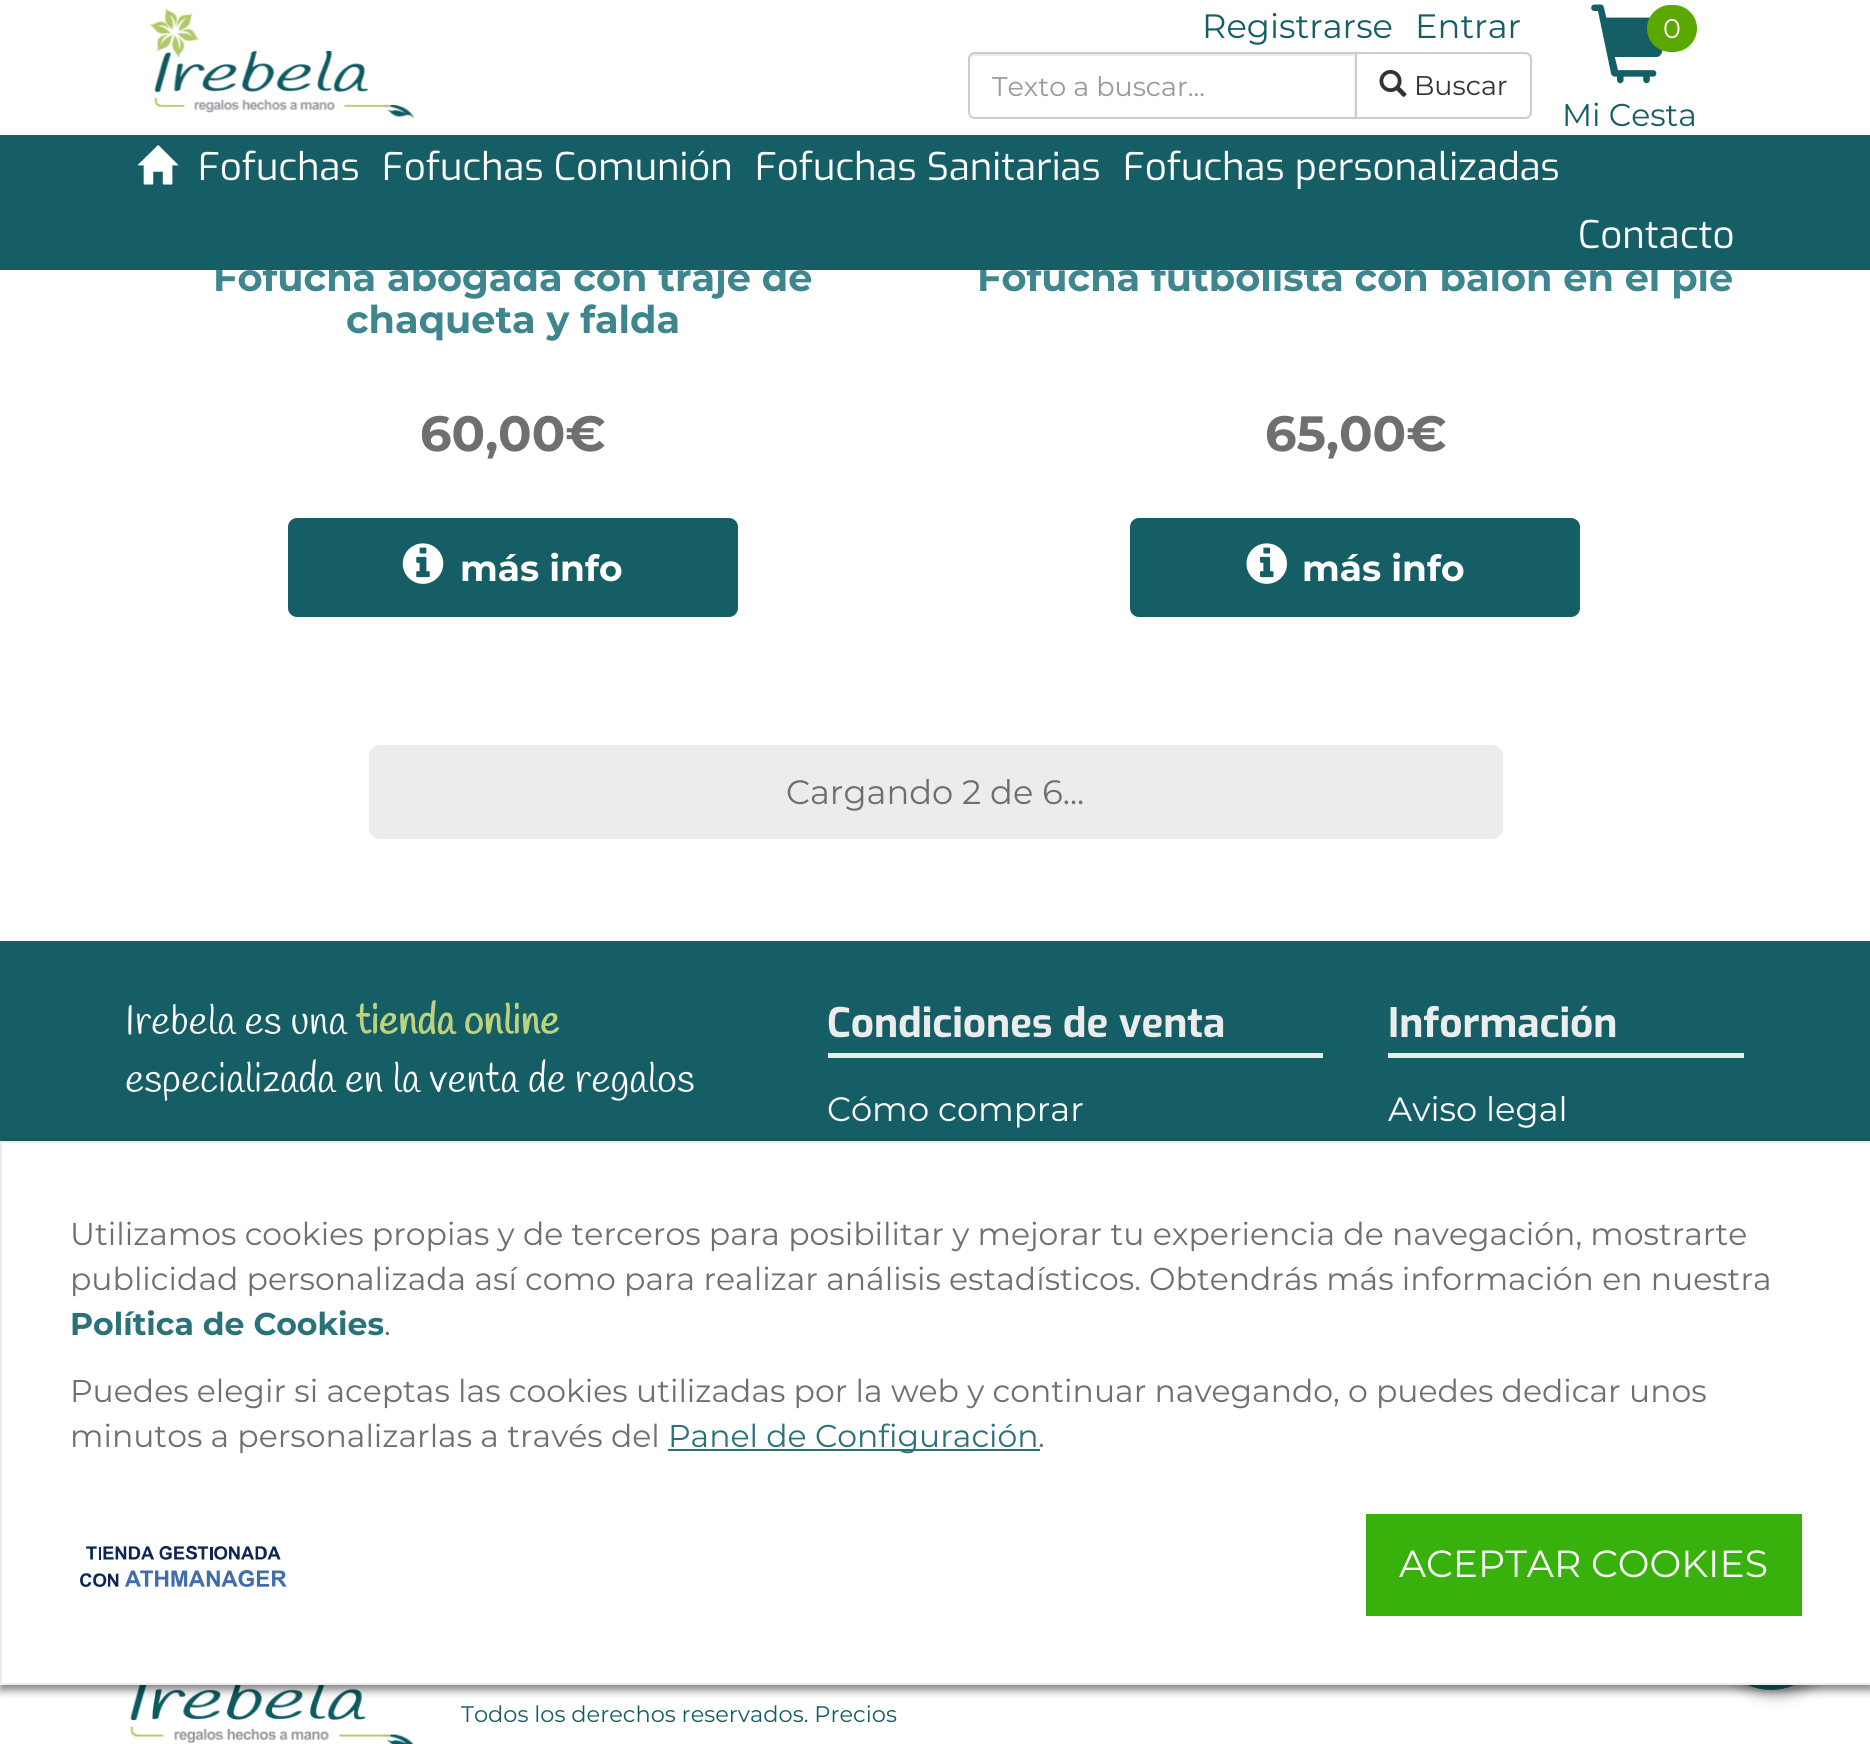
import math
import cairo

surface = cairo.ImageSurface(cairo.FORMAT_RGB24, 1870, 1744)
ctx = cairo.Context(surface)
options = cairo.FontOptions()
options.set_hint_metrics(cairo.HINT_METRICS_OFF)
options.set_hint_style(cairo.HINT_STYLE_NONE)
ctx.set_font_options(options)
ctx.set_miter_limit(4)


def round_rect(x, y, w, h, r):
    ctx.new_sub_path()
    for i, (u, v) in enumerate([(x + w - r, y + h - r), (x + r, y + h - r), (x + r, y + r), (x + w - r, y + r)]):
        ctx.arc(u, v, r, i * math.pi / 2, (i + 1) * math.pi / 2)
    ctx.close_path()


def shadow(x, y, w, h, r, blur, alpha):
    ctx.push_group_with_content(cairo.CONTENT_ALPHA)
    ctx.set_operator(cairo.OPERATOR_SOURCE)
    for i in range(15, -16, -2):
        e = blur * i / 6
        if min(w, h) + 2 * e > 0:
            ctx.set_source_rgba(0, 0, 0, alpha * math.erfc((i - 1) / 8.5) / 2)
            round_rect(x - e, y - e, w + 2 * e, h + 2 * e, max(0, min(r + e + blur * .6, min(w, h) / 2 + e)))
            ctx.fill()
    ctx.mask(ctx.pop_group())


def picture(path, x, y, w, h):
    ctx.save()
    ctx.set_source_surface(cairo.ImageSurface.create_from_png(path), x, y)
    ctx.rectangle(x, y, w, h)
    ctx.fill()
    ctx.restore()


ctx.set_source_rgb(1, 1, 1)
ctx.paint()
picture("img1.png", 149, 8, 265, 111)
ctx.select_font_face("Montserrat")
ctx.set_font_size(33.75)
ctx.set_source_rgb(0.086, 0.369, 0.396)
ctx.move_to(1202, 38)
ctx.show_text("Registrarse")
ctx.move_to(1415, 38)
ctx.show_text("Entrar")
ctx.set_source_rgb(0.925, 0.925, 0.925)
ctx.new_path()
ctx.move_to(974, 56)
ctx.line_to(1354, 56)
ctx.line_to(1354, 117)
ctx.line_to(1355, 117)
ctx.line_to(1355, 54)
ctx.line_to(975, 54)
ctx.curve_to(972, 54, 970, 56, 970, 59)
ctx.line_to(970, 61)
ctx.curve_to(970, 58, 972, 56, 974, 56)
ctx.close_path()
ctx.fill()
ctx.new_path()
ctx.move_to(975, 53)
ctx.line_to(1356, 53)
ctx.line_to(1356, 118)
ctx.line_to(975, 118)
ctx.curve_to(971.5, 118, 969, 115.5, 969, 112)
ctx.line_to(969, 59)
ctx.curve_to(969, 55.5, 971.5, 53, 975, 53)
ctx.close_path()
ctx.set_source_rgb(0.8, 0.8, 0.8)
ctx.stroke()
ctx.set_font_size(27)
ctx.set_source_rgb(0.6, 0.6, 0.6)
ctx.move_to(992, 96)
ctx.show_text("Texto a buscar...")
ctx.set_source_rgb(1, 1, 1)
ctx.new_path()
ctx.move_to(1356, 53)
ctx.line_to(1525, 53)
ctx.curve_to(1528.5, 53, 1531, 55.5, 1531, 59)
ctx.line_to(1531, 112)
ctx.curve_to(1531, 115.5, 1528.5, 118, 1525, 118)
ctx.line_to(1356, 118)
ctx.close_path()
ctx.fill_preserve()
ctx.set_source_rgb(0.8, 0.8, 0.8)
ctx.stroke()
picture("img2.png", 1379, 70, 28, 27)
ctx.set_source_rgb(0.2, 0.2, 0.2)
ctx.move_to(1414, 95)
ctx.show_text("Buscar")
picture("img3.png", 1591, 4, 72, 80)
ctx.set_source_rgb(0.353, 0.659, 0)
round_rect(1647, 5, 50, 47, 23.5)
ctx.fill()
ctx.set_source_rgb(1, 1, 1)
ctx.move_to(1663, 38)
ctx.show_text("0")
ctx.set_font_size(31.5)
ctx.set_source_rgb(0.086, 0.369, 0.396)
ctx.move_to(1562, 126)
ctx.show_text("Mi Cesta")
ctx.select_font_face("Montserrat", cairo.FONT_SLANT_NORMAL, cairo.FONT_WEIGHT_BOLD)
ctx.set_font_size(38.25)
ctx.set_source_rgb(0.243, 0.525, 0.553)
ctx.move_to(213, 291)
ctx.show_text("Fofucha abogada con traje de")
ctx.move_to(977, 291)
ctx.show_text("Fofucha futbolista con balón en el pié")
ctx.set_source_rgb(0.086, 0.369, 0.396)
ctx.rectangle(0, 135, 1870, 135)
ctx.fill()
picture("img4.png", 137, 145, 42, 40)
ctx.select_font_face("Exo")
ctx.set_source_rgb(1, 1, 1)
ctx.move_to(198, 180)
ctx.show_text("Fofuchas")
ctx.move_to(382, 180)
ctx.show_text("Fofuchas Comunión")
ctx.move_to(755, 180)
ctx.show_text("Fofuchas Sanitarias")
ctx.move_to(1123, 180)
ctx.show_text("Fofuchas personalizadas")
ctx.move_to(1578, 248)
ctx.show_text("Contacto")
ctx.select_font_face("Montserrat", cairo.FONT_SLANT_NORMAL, cairo.FONT_WEIGHT_BOLD)
ctx.set_source_rgb(0.243, 0.525, 0.553)
ctx.move_to(346, 333)
ctx.show_text("chaqueta y falda")
ctx.set_font_size(49.5)
ctx.set_source_rgb(0.435, 0.435, 0.435)
ctx.move_to(420, 451)
ctx.show_text("60,00€")
ctx.set_source_rgb(0.086, 0.369, 0.396)
round_rect(288, 518, 450, 99, 9)
ctx.fill()
picture("img5.png", 402, 543, 42, 41)
ctx.set_font_size(36)
ctx.set_source_rgb(1, 1, 1)
ctx.move_to(460, 581)
ctx.show_text("más info")
ctx.set_font_size(49.5)
ctx.set_source_rgb(0.435, 0.435, 0.435)
ctx.move_to(1265, 451)
ctx.show_text("65,00€")
ctx.set_source_rgb(0.086, 0.369, 0.396)
round_rect(1130, 518, 450, 99, 9)
ctx.fill()
picture("img6.png", 1246, 543, 41, 41)
ctx.set_font_size(36)
ctx.set_source_rgb(1, 1, 1)
ctx.move_to(1302, 581)
ctx.show_text("más info")
ctx.set_source_rgb(0.918, 0.922, 0.925)
round_rect(369, 745, 1134, 94, 11)
ctx.fill()
ctx.select_font_face("Montserrat")
ctx.set_font_size(33.75)
ctx.set_source_rgb(0.435, 0.435, 0.435)
ctx.move_to(786, 804)
ctx.show_text("Cargando 2 de 6...")
ctx.set_source_rgb(0.086, 0.369, 0.396)
ctx.rectangle(0, 941, 1870, 200)
ctx.fill()
ctx.select_font_face("Handlee")
ctx.set_font_size(40.5)
ctx.set_source_rgb(1, 1, 1)
ctx.move_to(125, 1034)
ctx.show_text("Irebela es una")
ctx.select_font_face("Handlee", cairo.FONT_SLANT_NORMAL, cairo.FONT_WEIGHT_BOLD)
ctx.set_source_rgb(0.737, 0.824, 0.494)
ctx.move_to(356, 1034)
ctx.show_text("tienda online")
ctx.select_font_face("Handlee")
ctx.set_source_rgb(1, 1, 1)
ctx.move_to(125, 1092)
ctx.show_text("especializada en la venta de regalos")
ctx.set_source_rgb(0.922, 0.922, 0.922)
ctx.rectangle(828, 1053, 495, 5)
ctx.fill()
ctx.select_font_face("Exo", cairo.FONT_SLANT_NORMAL, cairo.FONT_WEIGHT_BOLD)
ctx.move_to(827, 1037)
ctx.show_text("Condiciones de venta")
ctx.select_font_face("Montserrat")
ctx.set_font_size(33.75)
ctx.set_source_rgb(1, 1, 1)
ctx.move_to(827, 1121)
ctx.show_text("Cómo comprar")
ctx.set_source_rgb(0.922, 0.922, 0.922)
ctx.rectangle(1388, 1053, 356, 5)
ctx.fill()
ctx.select_font_face("Exo", cairo.FONT_SLANT_NORMAL, cairo.FONT_WEIGHT_BOLD)
ctx.set_font_size(40.5)
ctx.move_to(1388, 1037)
ctx.show_text("Información")
ctx.select_font_face("Montserrat")
ctx.set_font_size(33.75)
ctx.set_source_rgb(1, 1, 1)
ctx.move_to(1388, 1121)
ctx.show_text("Aviso legal")
ctx.set_source_rgb(0, 0, 0)
shadow(1719, 1582, 113, 112, 56, 7, 0.4)
ctx.set_source_rgb(0.086, 0.369, 0.396)
round_rect(1715, 1577, 112, 113, 56)
ctx.fill()
picture("img7.png", 129, 1685, 285, 59)
ctx.set_font_size(22.5)
ctx.move_to(461, 1722)
ctx.show_text("Todos los derechos reservados. Precios")
ctx.set_source_rgb(0, 0, 0)
shadow(0, 1145, 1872, 545, 0, 4.5, 0.5)
ctx.set_source_rgb(1, 1, 1)
ctx.rectangle(1, 1142, 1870, 542)
ctx.fill_preserve()
ctx.set_source_rgb(0.922, 0.922, 0.922)
ctx.stroke()
ctx.set_font_size(31.5)
ctx.set_source_rgb(0.435, 0.435, 0.435)
ctx.move_to(70, 1245)
ctx.show_text("Utilizamos cookies propias y de terceros para posibilitar y mejorar tu experiencia de navegación, mostrarte")
ctx.move_to(70, 1290)
ctx.show_text("publicidad personalizada así como para realizar análisis estadísticos. Obtendrás más información en nuestra")
ctx.select_font_face("Montserrat", cairo.FONT_SLANT_NORMAL, cairo.FONT_WEIGHT_BOLD)
ctx.set_source_rgb(0.165, 0.447, 0.475)
ctx.move_to(70, 1335)
ctx.show_text("Política de Cookies")
ctx.select_font_face("Montserrat")
ctx.set_source_rgb(0.435, 0.435, 0.435)
ctx.move_to(384, 1335)
ctx.show_text(".")
ctx.move_to(70, 1402)
ctx.show_text("Puedes elegir si aceptas las cookies utilizadas por la web y continuar navegando, o puedes dedicar unos")
ctx.move_to(70, 1447)
ctx.show_text("minutos a personalizarlas a través del")
ctx.set_source_rgb(0.165, 0.447, 0.475)
ctx.rectangle(668, 1449, 372, 2)
ctx.fill()
ctx.move_to(668, 1447)
ctx.show_text("Panel de Configuración")
ctx.set_source_rgb(0.435, 0.435, 0.435)
ctx.move_to(1038, 1447)
ctx.show_text(".")
picture("img8.png", 80, 1545, 207, 42)
ctx.set_source_rgb(0.224, 0.694, 0.051)
ctx.rectangle(1366, 1514, 436, 102)
ctx.fill()
ctx.set_font_size(37.75)
ctx.set_source_rgb(1, 1, 1)
ctx.move_to(1399, 1577)
ctx.show_text("ACEPTAR COOKIES")
surface.write_to_png("page.png")
